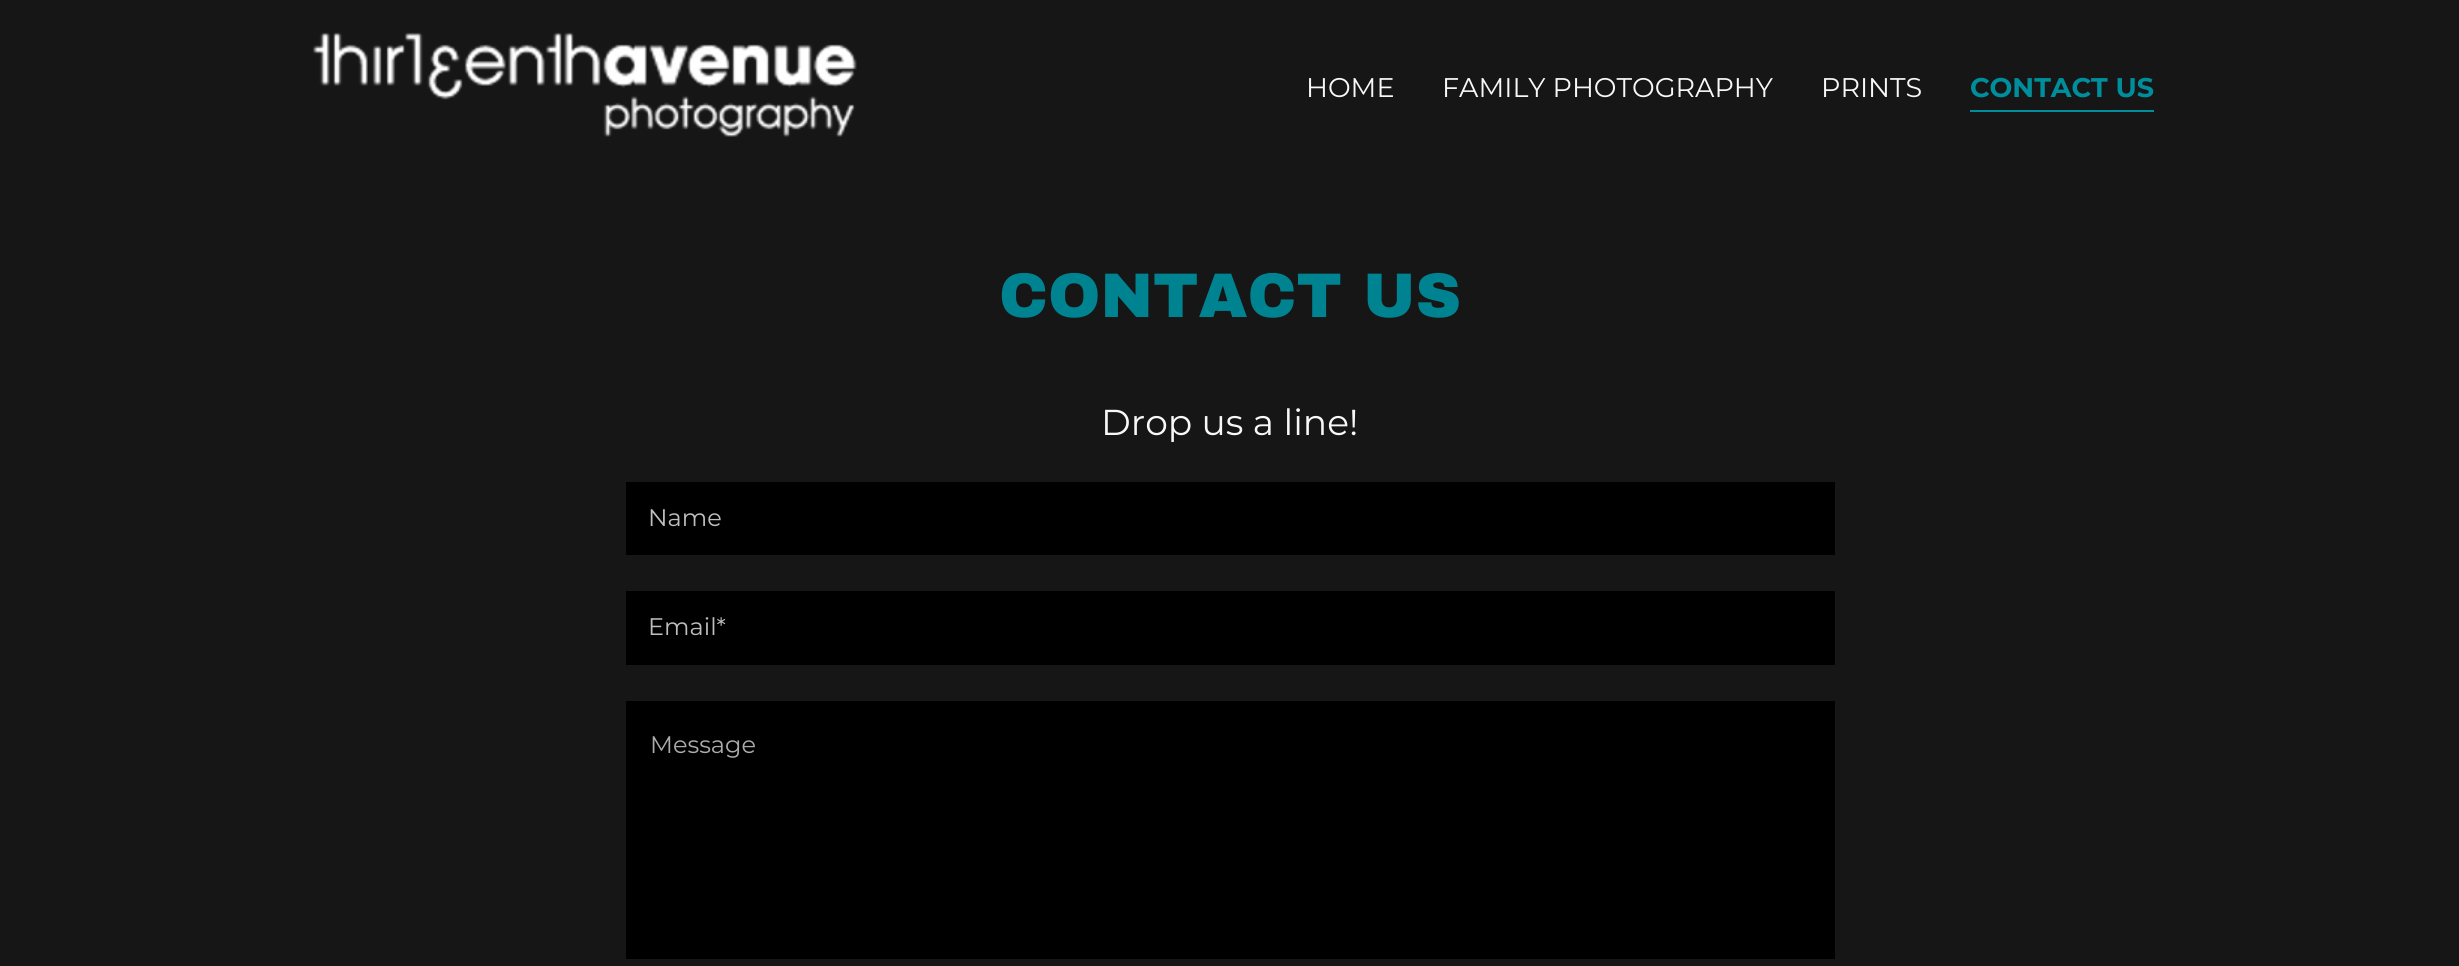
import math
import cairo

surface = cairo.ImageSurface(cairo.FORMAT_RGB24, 2459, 966)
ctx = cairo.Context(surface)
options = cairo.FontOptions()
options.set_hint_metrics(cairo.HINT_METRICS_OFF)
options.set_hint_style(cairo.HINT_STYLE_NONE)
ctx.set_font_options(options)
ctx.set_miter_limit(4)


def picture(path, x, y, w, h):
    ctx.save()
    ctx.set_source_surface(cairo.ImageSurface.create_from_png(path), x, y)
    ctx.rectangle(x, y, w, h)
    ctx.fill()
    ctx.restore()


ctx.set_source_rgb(0.086, 0.086, 0.086)
ctx.paint()
picture("img1.png", 312, 32, 545, 105)
ctx.select_font_face("Montserrat")
ctx.set_font_size(27)
ctx.set_source_rgb(0.969, 0.969, 0.969)
ctx.move_to(1306, 97)
ctx.show_text("HOME")
ctx.move_to(1442, 97)
ctx.show_text("FAMILY PHOTOGRAPHY")
ctx.move_to(1821, 97)
ctx.show_text("PRINTS")
ctx.set_source_rgb(0, 0.557, 0.612)
ctx.rectangle(1970, 110, 184, 2)
ctx.fill()
ctx.select_font_face("Montserrat", cairo.FONT_SLANT_NORMAL, cairo.FONT_WEIGHT_BOLD)
ctx.move_to(1970, 97)
ctx.show_text("CONTACT US")
ctx.select_font_face("Archivo Black Black")
ctx.set_font_size(63)
ctx.set_source_rgb(0, 0.514, 0.565)
ctx.move_to(999, 317)
ctx.show_text("CONTACT US")
ctx.select_font_face("Montserrat")
ctx.set_font_size(36)
ctx.set_source_rgb(0.969, 0.969, 0.969)
ctx.move_to(1101, 435)
ctx.show_text("Drop us a line!")
ctx.set_source_rgb(0, 0, 0)
ctx.rectangle(626, 482, 1209, 73)
ctx.fill()
ctx.set_font_size(24)
ctx.set_source_rgb(0.749, 0.749, 0.749)
ctx.move_to(648, 526)
ctx.show_text("Name")
ctx.set_source_rgb(0, 0, 0)
ctx.rectangle(626, 591, 1209, 74)
ctx.fill()
ctx.set_source_rgb(0.749, 0.749, 0.749)
ctx.move_to(648, 635)
ctx.show_text("Email*")
ctx.set_source_rgb(0, 0, 0)
ctx.rectangle(626, 701, 1209, 258)
ctx.fill()
ctx.set_source_rgb(0.671, 0.671, 0.671)
ctx.move_to(650, 753)
ctx.show_text("Message")
surface.write_to_png("page.png")
